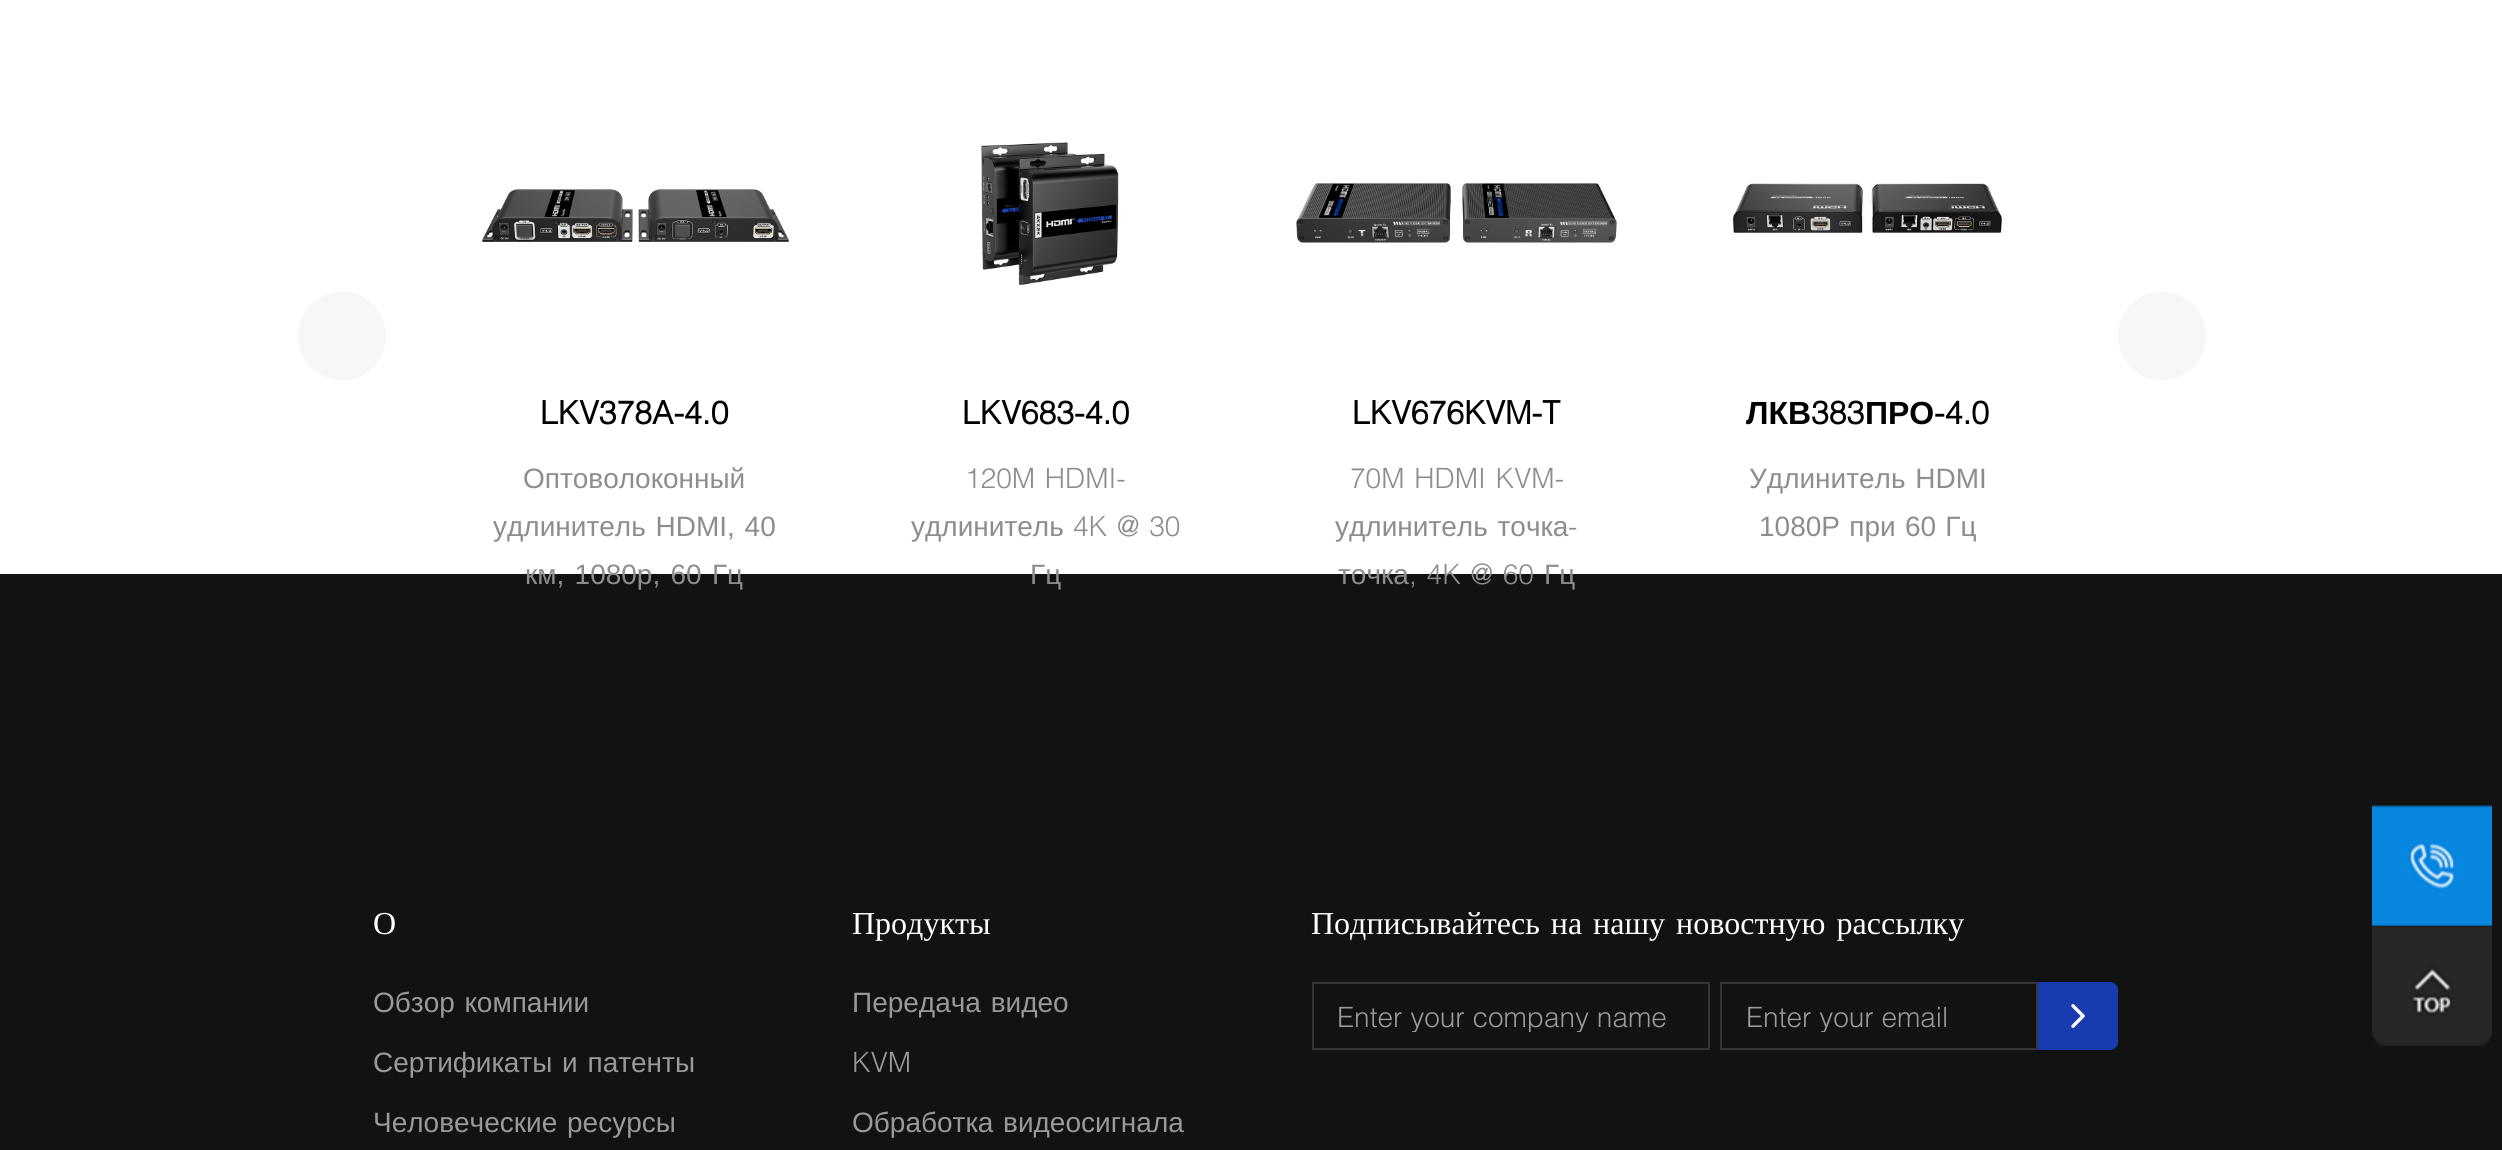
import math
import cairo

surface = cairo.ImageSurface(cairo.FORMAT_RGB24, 2502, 1150)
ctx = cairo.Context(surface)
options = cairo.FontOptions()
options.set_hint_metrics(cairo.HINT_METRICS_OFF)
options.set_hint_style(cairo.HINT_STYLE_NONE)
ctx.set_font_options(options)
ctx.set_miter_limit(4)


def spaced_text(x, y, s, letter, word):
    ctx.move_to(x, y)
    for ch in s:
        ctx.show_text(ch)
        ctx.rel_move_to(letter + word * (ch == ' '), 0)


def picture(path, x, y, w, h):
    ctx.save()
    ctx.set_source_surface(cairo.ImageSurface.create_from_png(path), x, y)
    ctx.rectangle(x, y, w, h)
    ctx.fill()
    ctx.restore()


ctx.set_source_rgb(0.071, 0.071, 0.071)
ctx.paint()
ctx.set_source_rgb(1, 1, 1)
ctx.rectangle(0, 0, 2502, 574)
ctx.fill()
ctx.set_source_rgb(0.961, 0.965, 0.976)
ctx.arc(342, 336, 44, 0, 2 * math.pi)
ctx.fill()
ctx.arc(2162, 336, 44, 0, 2 * math.pi)
ctx.fill()
picture("img1.png", 481, 189, 308, 53)
ctx.select_font_face("Helvetica", cairo.FONT_SLANT_NORMAL, cairo.FONT_WEIGHT_BOLD)
ctx.set_font_size(32)
ctx.set_source_rgb(0, 0, 0)
ctx.move_to(540, 424)
ctx.show_text("LKV378A-4.0")
ctx.select_font_face("Liberation Sans")
ctx.set_font_size(28)
ctx.set_source_rgb(0.553, 0.553, 0.553)
ctx.move_to(523, 488)
ctx.show_text("Оптоволоконный")
spaced_text(493, 536, "удлинитель HDMI, 40", 0, 2)
spaced_text(525, 584, "км, 1080p, 60 Гц", 0, 2.5)
picture("img2.png", 981, 142, 138, 144)
ctx.select_font_face("Helvetica", cairo.FONT_SLANT_NORMAL, cairo.FONT_WEIGHT_BOLD)
ctx.set_font_size(32)
ctx.set_source_rgb(0, 0, 0)
ctx.move_to(962, 424)
ctx.show_text("LKV683-4.0")
ctx.select_font_face("Helvetica Light")
ctx.set_font_size(28)
ctx.set_source_rgb(0.553, 0.553, 0.553)
spaced_text(965, 488, "120M HDMI-", 0, 2)
ctx.select_font_face("Liberation Sans")
ctx.move_to(911, 536)
ctx.show_text("удлинитель")
ctx.select_font_face("Helvetica Light")
spaced_text(1073, 536, "4K @ 30", 0, 2)
ctx.select_font_face("Liberation Sans")
ctx.move_to(1030, 584)
ctx.show_text("Гц")
picture("img3.png", 1296, 183, 321, 60)
ctx.select_font_face("Helvetica", cairo.FONT_SLANT_NORMAL, cairo.FONT_WEIGHT_BOLD)
ctx.set_font_size(32)
ctx.set_source_rgb(0, 0, 0)
ctx.move_to(1352, 424)
ctx.show_text("LKV676KVM-T")
ctx.select_font_face("Helvetica Light")
ctx.set_font_size(28)
ctx.set_source_rgb(0.553, 0.553, 0.553)
spaced_text(1350, 488, "70M HDMI KVM-", 0, 2)
ctx.select_font_face("Liberation Sans")
spaced_text(1335, 536, "удлинитель точка", 0, 2)
ctx.select_font_face("Helvetica Light")
ctx.move_to(1568, 536)
ctx.show_text("-")
ctx.select_font_face("Liberation Sans")
ctx.move_to(1338, 584)
ctx.show_text("точка")
ctx.select_font_face("Helvetica Light")
spaced_text(1409, 584, ", 4K @ 60", 0, 2)
ctx.select_font_face("Liberation Sans")
ctx.move_to(1544, 584)
ctx.show_text("Гц")
picture("img4.png", 1732, 183, 271, 50)
ctx.select_font_face("Liberation Sans", cairo.FONT_SLANT_NORMAL, cairo.FONT_WEIGHT_BOLD)
ctx.set_font_size(32)
ctx.set_source_rgb(0, 0, 0)
ctx.move_to(1746, 424)
ctx.show_text("ЛКВ")
ctx.select_font_face("Helvetica", cairo.FONT_SLANT_NORMAL, cairo.FONT_WEIGHT_BOLD)
ctx.move_to(1811, 424)
ctx.show_text("383")
ctx.select_font_face("Liberation Sans", cairo.FONT_SLANT_NORMAL, cairo.FONT_WEIGHT_BOLD)
ctx.move_to(1865, 424)
ctx.show_text("ПРО")
ctx.select_font_face("Helvetica", cairo.FONT_SLANT_NORMAL, cairo.FONT_WEIGHT_BOLD)
ctx.move_to(1934, 424)
ctx.show_text("-4.0")
ctx.select_font_face("Liberation Sans")
ctx.set_font_size(28)
ctx.set_source_rgb(0.553, 0.553, 0.553)
spaced_text(1749, 488, "Удлинитель HDMI", 0, 2)
spaced_text(1759, 536, "1080P при 60 Гц", 0, 1.5)
ctx.select_font_face("Liberation Serif")
ctx.set_font_size(32)
ctx.set_source_rgb(1, 1, 1)
ctx.move_to(373, 934)
ctx.show_text("О")
ctx.select_font_face("Liberation Sans")
ctx.set_font_size(28)
ctx.set_source_rgb(0.6, 0.6, 0.6)
spaced_text(373, 1012, "Обзор компании", 0, 2)
spaced_text(373, 1072, "Сертификаты и патенты", 0, 2)
spaced_text(373, 1132, "Человеческие ресурсы", 0, 2)
ctx.select_font_face("Liberation Serif")
ctx.set_font_size(32)
ctx.set_source_rgb(1, 1, 1)
ctx.move_to(852, 934)
ctx.show_text("Продукты")
ctx.select_font_face("Liberation Sans")
ctx.set_font_size(28)
ctx.set_source_rgb(0.6, 0.6, 0.6)
spaced_text(852, 1012, "Передача видео", 0, 2)
ctx.select_font_face("Helvetica Light")
ctx.move_to(852, 1072)
ctx.show_text("KVM")
ctx.select_font_face("Liberation Sans")
spaced_text(852, 1132, "Обработка видеосигнала", 0, 2)
ctx.select_font_face("Liberation Serif")
ctx.set_font_size(32)
ctx.set_source_rgb(1, 1, 1)
spaced_text(1311, 934, "Подписывайтесь на нашу новостную рассылку", 0, 3)
ctx.rectangle(1313, 983, 396, 66)
ctx.set_source_rgb(0.208, 0.208, 0.208)
ctx.stroke()
ctx.save()
ctx.rectangle(1338, 998, 346, 34)
ctx.clip()
ctx.select_font_face("Helvetica Light")
ctx.set_font_size(28)
ctx.set_source_rgb(0.6, 0.6, 0.6)
ctx.move_to(1337, 1027)
ctx.show_text("Enter your company name")
ctx.restore()
ctx.rectangle(1721, 983, 316, 66)
ctx.stroke()
ctx.save()
ctx.rectangle(1746, 998, 266, 34)
ctx.clip()
ctx.select_font_face("Helvetica Light")
ctx.set_font_size(28)
ctx.set_source_rgb(0.6, 0.6, 0.6)
ctx.move_to(1746, 1027)
ctx.show_text("Enter your email")
ctx.restore()
ctx.set_source_rgb(0.09, 0.235, 0.686)
ctx.new_path()
ctx.move_to(2038, 982)
ctx.line_to(2110, 982)
ctx.curve_to(2114.5, 982, 2118, 985.5, 2118, 990)
ctx.line_to(2118, 1042)
ctx.curve_to(2118, 1046.5, 2114.5, 1050, 2110, 1050)
ctx.line_to(2038, 1050)
ctx.close_path()
ctx.fill()
picture("img5.png", 2071, 1004, 14, 24)
picture("img7.png", 2372, 925, 120, 121)
picture("img6.png", 2372, 805, 120, 121)
surface.write_to_png("page.png")
